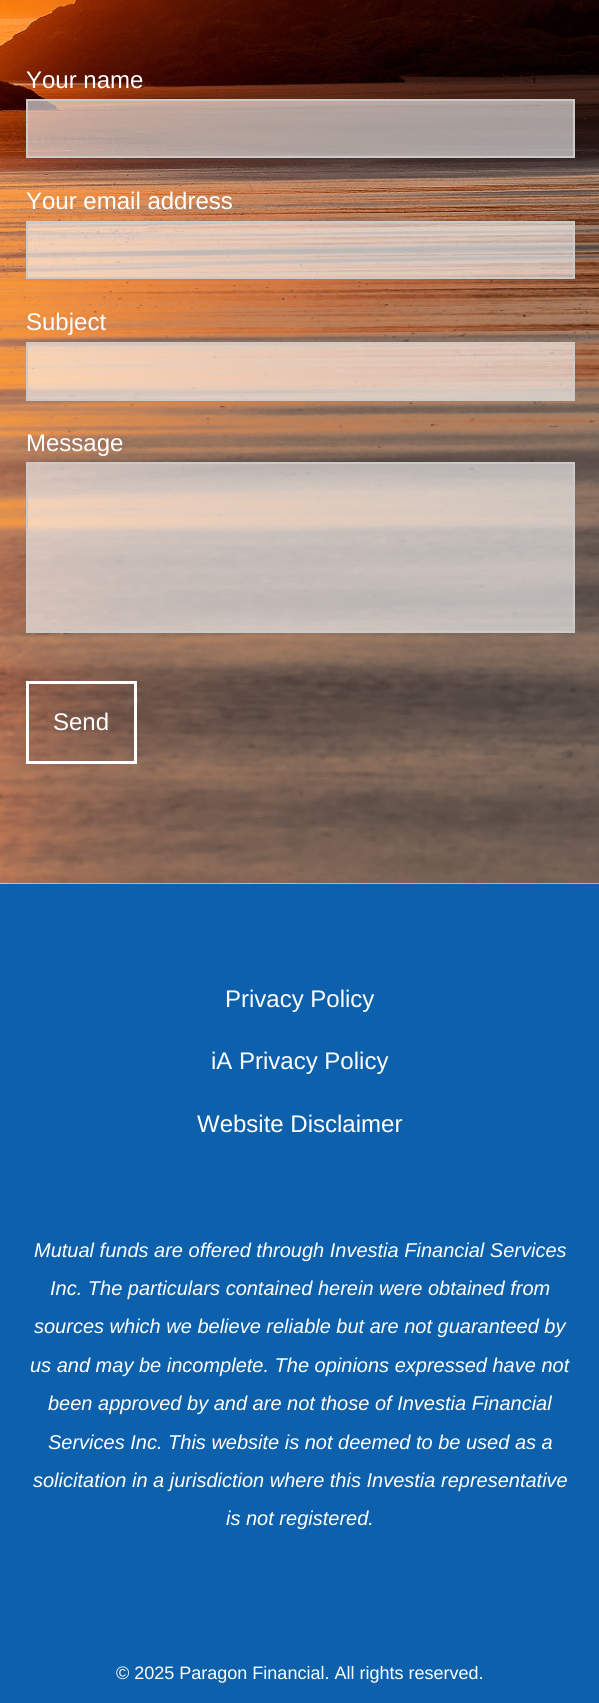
import math
import cairo

surface = cairo.ImageSurface(cairo.FORMAT_RGB24, 599, 1703)
ctx = cairo.Context(surface)
options = cairo.FontOptions()
options.set_hint_metrics(cairo.HINT_METRICS_OFF)
options.set_hint_style(cairo.HINT_STYLE_NONE)
ctx.set_font_options(options)
ctx.set_miter_limit(4)


def picture(path, x, y, w, h):
    ctx.save()
    ctx.set_source_surface(cairo.ImageSurface.create_from_png(path), x, y)
    ctx.rectangle(x, y, w, h)
    ctx.fill()
    ctx.restore()


ctx.set_source_rgb(1, 1, 1)
ctx.paint()
picture("img1.png", 0, 0, 599, 884)
ctx.select_font_face("Arimo")
ctx.set_font_size(24)
ctx.set_source_rgb(1, 1, 1)
ctx.move_to(26, 88)
ctx.show_text("Your name")
ctx.set_source_rgba(0.996, 0.996, 0.996, 0.6)
ctx.rectangle(27, 100, 547, 57)
ctx.fill_preserve()
ctx.set_source_rgb(0.792, 0.792, 0.792)
ctx.stroke()
ctx.set_source_rgb(1, 1, 1)
ctx.move_to(26, 209)
ctx.show_text("Your email address")
ctx.set_source_rgba(0.996, 0.996, 0.996, 0.6)
ctx.rectangle(27, 222, 547, 56)
ctx.fill_preserve()
ctx.set_source_rgb(0.792, 0.792, 0.792)
ctx.stroke()
ctx.set_source_rgb(1, 1, 1)
ctx.move_to(26, 330)
ctx.show_text("Subject")
ctx.set_source_rgba(0.996, 0.996, 0.996, 0.6)
ctx.rectangle(27, 343, 547, 57)
ctx.fill_preserve()
ctx.set_source_rgb(0.792, 0.792, 0.792)
ctx.stroke()
ctx.set_source_rgb(1, 1, 1)
ctx.move_to(26, 451)
ctx.show_text("Message")
ctx.set_source_rgba(0.996, 0.996, 0.996, 0.6)
ctx.rectangle(27, 463, 547, 169)
ctx.fill_preserve()
ctx.set_source_rgb(0.792, 0.792, 0.792)
ctx.stroke()
ctx.rectangle(27.5, 682.5, 108, 80)
ctx.set_source_rgb(1, 1, 1)
ctx.set_line_width(3)
ctx.stroke()
ctx.move_to(53, 730)
ctx.show_text("Send")
ctx.set_source_rgb(0.051, 0.38, 0.675)
ctx.rectangle(0, 884, 599, 819)
ctx.fill()
ctx.set_source_rgb(1, 1, 1)
ctx.move_to(225, 1007)
ctx.show_text("Privacy Policy")
ctx.move_to(211, 1069)
ctx.show_text("iA Privacy Policy")
ctx.move_to(197, 1132)
ctx.show_text("Website Disclaimer")
ctx.select_font_face("Liberation Sans", cairo.FONT_SLANT_ITALIC)
ctx.set_font_size(20)
ctx.move_to(34, 1257)
ctx.show_text("Mutual funds are offered through Investia Financial Services")
ctx.move_to(50, 1295)
ctx.show_text("Inc. The particulars contained herein were obtained from")
ctx.move_to(34, 1333)
ctx.show_text("sources which we believe reliable but are not guaranteed by")
ctx.move_to(30, 1372)
ctx.show_text("us and may be incomplete. The opinions expressed have not")
ctx.move_to(48, 1410)
ctx.show_text("been approved by and are not those of Investia Financial")
ctx.move_to(48, 1449)
ctx.show_text("Services Inc. This website is not deemed to be used as a")
ctx.move_to(33, 1487)
ctx.show_text("solicitation in a jurisdiction where this Investia representative")
ctx.move_to(226, 1525)
ctx.show_text("is not registered.")
ctx.select_font_face("Arimo")
ctx.set_font_size(18)
ctx.move_to(116, 1679)
ctx.show_text("© 2025 Paragon Financial. All rights reserved.")
surface.write_to_png("page.png")
